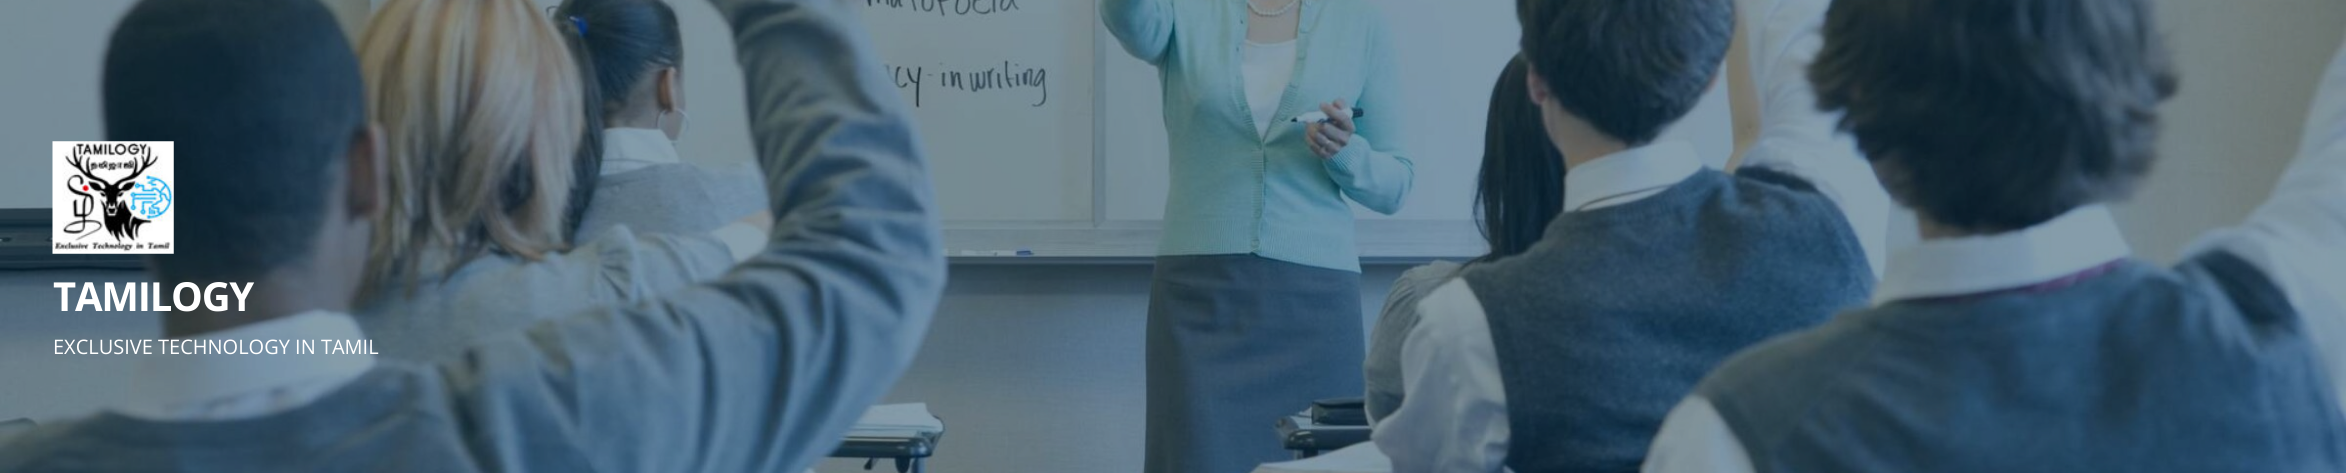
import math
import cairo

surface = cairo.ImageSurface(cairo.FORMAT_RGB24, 2346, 473)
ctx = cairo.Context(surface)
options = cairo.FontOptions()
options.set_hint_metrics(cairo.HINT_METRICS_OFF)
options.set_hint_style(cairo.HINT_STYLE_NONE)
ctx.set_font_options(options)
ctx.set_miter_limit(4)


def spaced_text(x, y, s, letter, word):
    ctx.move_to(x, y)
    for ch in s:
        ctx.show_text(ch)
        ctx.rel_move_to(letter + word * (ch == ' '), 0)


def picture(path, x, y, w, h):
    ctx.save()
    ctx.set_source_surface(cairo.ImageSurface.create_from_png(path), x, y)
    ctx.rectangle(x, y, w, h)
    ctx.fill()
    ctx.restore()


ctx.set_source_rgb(1, 1, 1)
ctx.paint()
picture("img1.png", 0, 0, 2346, 473)
picture("img2.png", 52, 141, 122, 113)
ctx.select_font_face("Open Sans", cairo.FONT_SLANT_NORMAL, cairo.FONT_WEIGHT_BOLD)
ctx.set_font_size(40)
ctx.set_source_rgb(1, 1, 1)
spaced_text(53, 311, "TAMILOGY", -1.25, 0)
ctx.select_font_face("Open Sans")
ctx.set_font_size(20)
ctx.move_to(53, 354)
ctx.show_text("EXCLUSIVE TECHNOLOGY IN TAMIL")
surface.write_to_png("page.png")
